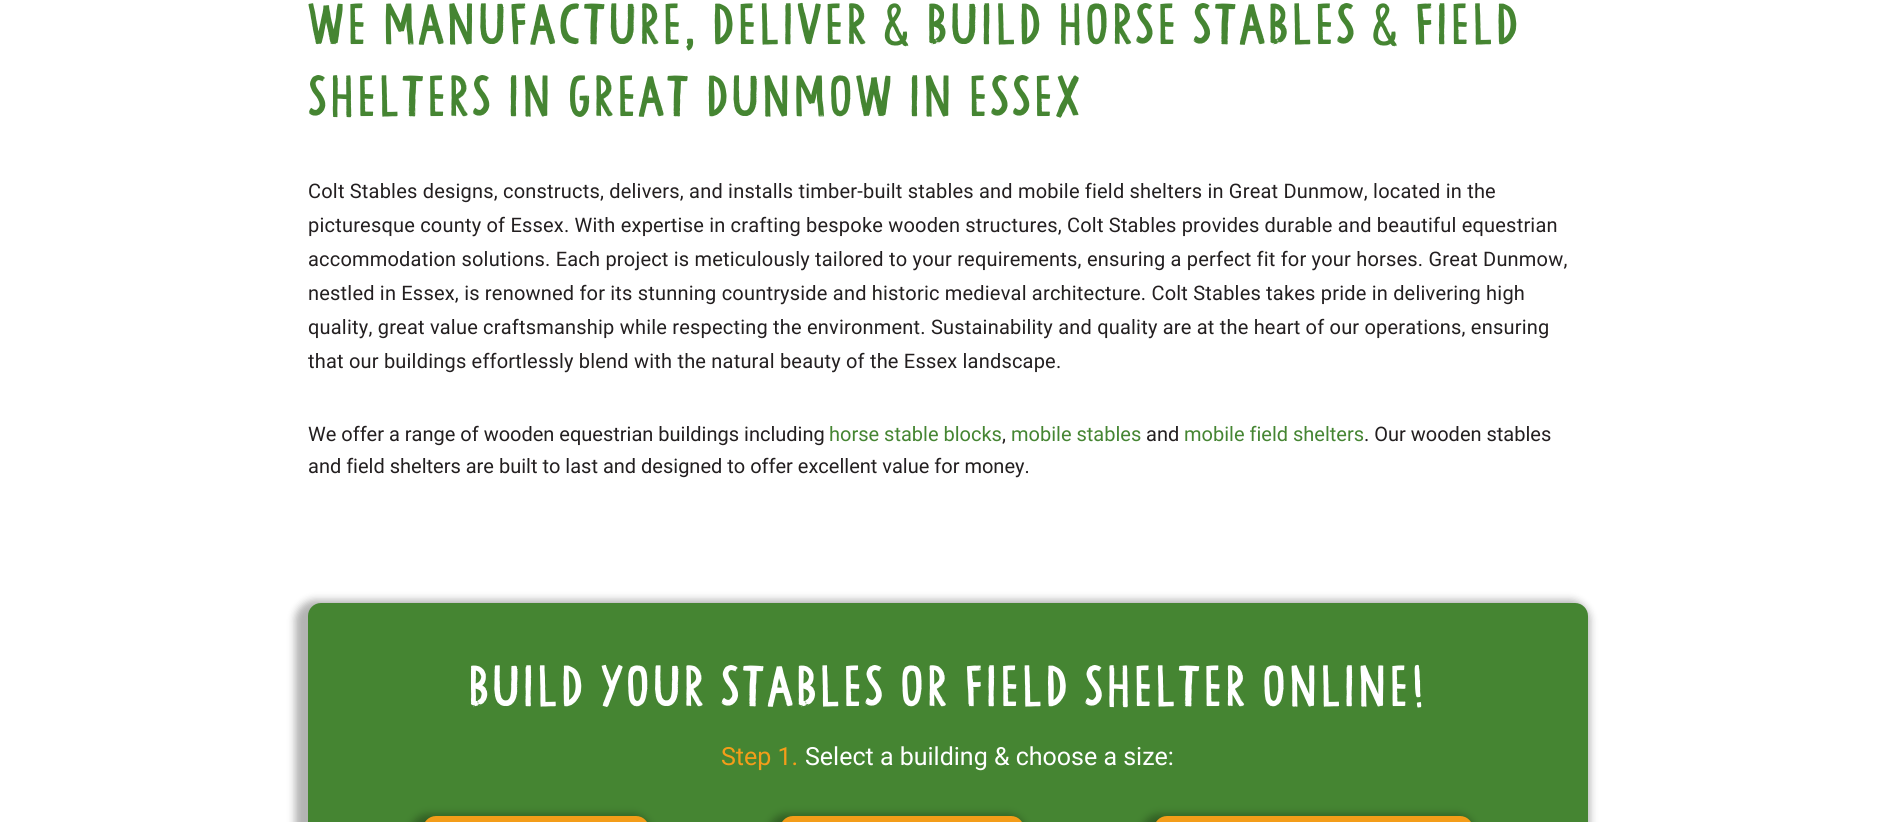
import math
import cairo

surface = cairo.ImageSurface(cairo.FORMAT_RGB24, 1895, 822)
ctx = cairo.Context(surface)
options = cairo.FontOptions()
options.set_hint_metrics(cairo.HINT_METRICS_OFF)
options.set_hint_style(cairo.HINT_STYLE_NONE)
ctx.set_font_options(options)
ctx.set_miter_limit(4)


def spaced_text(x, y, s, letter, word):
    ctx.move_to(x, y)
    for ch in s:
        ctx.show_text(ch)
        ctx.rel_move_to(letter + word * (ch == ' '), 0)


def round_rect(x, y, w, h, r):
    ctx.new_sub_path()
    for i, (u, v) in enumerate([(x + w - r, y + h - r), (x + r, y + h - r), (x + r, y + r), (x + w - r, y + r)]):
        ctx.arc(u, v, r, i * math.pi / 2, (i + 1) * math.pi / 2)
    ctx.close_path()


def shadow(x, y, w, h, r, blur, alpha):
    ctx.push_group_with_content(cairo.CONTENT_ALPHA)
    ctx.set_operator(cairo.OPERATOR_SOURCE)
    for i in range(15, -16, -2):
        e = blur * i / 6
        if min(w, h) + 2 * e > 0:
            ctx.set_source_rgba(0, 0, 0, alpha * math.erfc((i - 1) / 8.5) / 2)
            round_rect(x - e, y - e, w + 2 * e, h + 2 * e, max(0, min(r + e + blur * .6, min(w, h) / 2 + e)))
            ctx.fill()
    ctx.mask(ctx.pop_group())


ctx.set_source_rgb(1, 1, 1)
ctx.paint()
ctx.select_font_face("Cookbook")
ctx.set_font_size(60)
ctx.set_source_rgb(0.271, 0.522, 0.196)
spaced_text(308, 44, "We manufacture, deliver & build horse stables & field", 3, 0)
spaced_text(308, 116, "shelters in Great Dunmow in Essex", 3, 0)
ctx.select_font_face("Roboto")
ctx.set_font_size(20)
ctx.set_source_rgb(0.137, 0.122, 0.125)
spaced_text(308, 198, "Colt Stables designs, constructs, delivers, and installs timber-built stables and mobile field shelters in Great Dunmow, located in the", 0.2, 0)
spaced_text(308, 232, "picturesque county of Essex. With expertise in crafting bespoke wooden structures, Colt Stables provides durable and beautiful equestrian", 0.2, 0)
spaced_text(308, 266, "accommodation solutions. Each project is meticulously tailored to your requirements, ensuring a perfect fit for your horses. Great Dunmow,", 0.2, 0)
spaced_text(308, 300, "nestled in Essex, is renowned for its stunning countryside and historic medieval architecture. Colt Stables takes pride in delivering high", 0.2, 0)
spaced_text(308, 334, "quality, great value craftsmanship while respecting the environment. Sustainability and quality are at the heart of our operations, ensuring", 0.2, 0)
spaced_text(308, 368, "that our buildings effortlessly blend with the natural beauty of the Essex landscape.", 0.2, 0)
ctx.move_to(308, 441)
ctx.show_text("We offer a range of wooden equestrian buildings including")
ctx.set_source_rgb(0.271, 0.522, 0.196)
ctx.move_to(829, 441)
ctx.show_text("horse stable blocks")
ctx.set_source_rgb(0.137, 0.122, 0.125)
ctx.move_to(1002, 441)
ctx.show_text(",")
ctx.set_source_rgb(0.271, 0.522, 0.196)
ctx.move_to(1011, 441)
ctx.show_text("mobile stables")
ctx.set_source_rgb(0.137, 0.122, 0.125)
ctx.move_to(1146, 441)
ctx.show_text("and")
ctx.set_source_rgb(0.271, 0.522, 0.196)
ctx.move_to(1184, 441)
ctx.show_text("mobile field shelters")
ctx.set_source_rgb(0.137, 0.122, 0.125)
ctx.move_to(1364, 441)
ctx.show_text(". Our wooden stables")
ctx.move_to(308, 473)
ctx.show_text("and field shelters are built to last and designed to offer excellent value for money.")
ctx.set_source_rgb(0, 0, 0)
shadow(295, 600, 1295, 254, 20, 4, 0.3)
ctx.set_source_rgb(0.271, 0.522, 0.196)
round_rect(308, 603, 1280, 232, 13)
ctx.fill()
ctx.select_font_face("Cookbook")
ctx.set_font_size(60)
ctx.set_source_rgb(1, 1, 1)
spaced_text(468, 706, "Build your stables or field shelter online!", 3, 0)
ctx.select_font_face("Roboto")
ctx.set_font_size(25)
ctx.set_source_rgb(0.957, 0.616, 0.098)
ctx.move_to(721, 765)
ctx.show_text("Step 1.")
ctx.set_source_rgb(1, 1, 1)
ctx.move_to(805, 765)
ctx.show_text("Select a building & choose a size:")
ctx.set_source_rgb(0, 0, 0)
shadow(410, 814, 241, 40, 20, 4, 0.29)
ctx.set_source_rgb(0.957, 0.616, 0.098)
round_rect(423, 816, 226, 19, 13)
ctx.fill()
ctx.set_source_rgb(0, 0, 0)
shadow(768, 814, 258, 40, 20, 4, 0.29)
ctx.set_source_rgb(0.957, 0.616, 0.098)
round_rect(780, 816, 244, 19, 13)
ctx.fill()
ctx.set_source_rgb(0, 0, 0)
shadow(1141, 814, 334, 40, 20, 4, 0.29)
ctx.set_source_rgb(0.957, 0.616, 0.098)
round_rect(1154, 816, 319, 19, 13)
ctx.fill()
surface.write_to_png("page.png")
